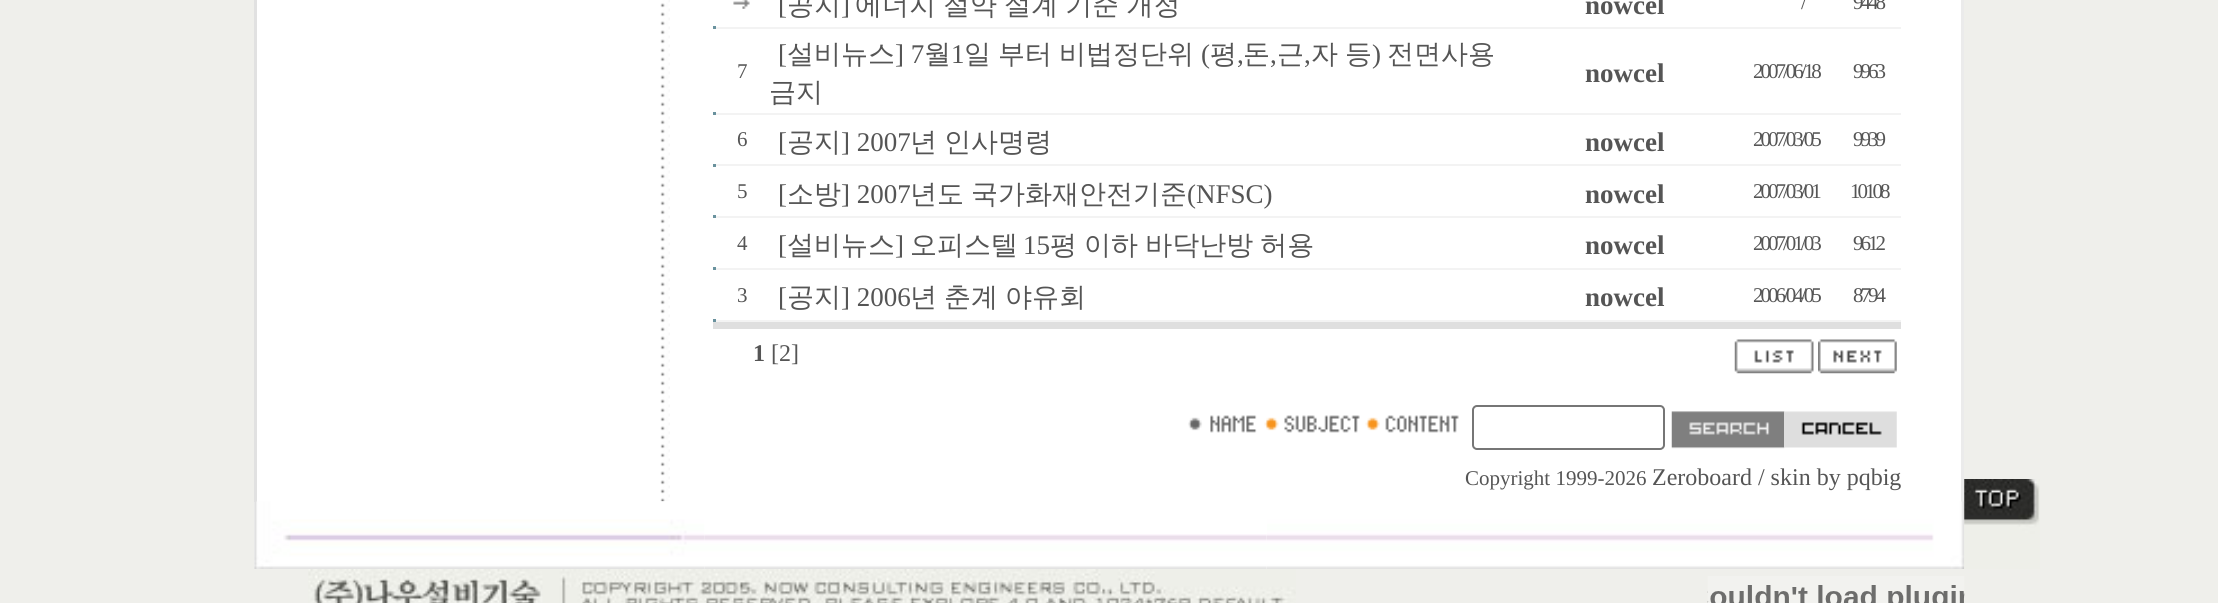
import math
import cairo

surface = cairo.ImageSurface(cairo.FORMAT_RGB24, 2218, 603)
ctx = cairo.Context(surface)
options = cairo.FontOptions()
options.set_hint_metrics(cairo.HINT_METRICS_OFF)
options.set_hint_style(cairo.HINT_STYLE_NONE)
ctx.set_font_options(options)
ctx.set_miter_limit(4)


def spaced_text(x, y, s, letter, word):
    ctx.move_to(x, y)
    for ch in s:
        ctx.show_text(ch)
        ctx.rel_move_to(letter + word * (ch == ' '), 0)


def round_rect(x, y, w, h, r):
    ctx.new_sub_path()
    for i, (u, v) in enumerate([(x + w - r, y + h - r), (x + r, y + h - r), (x + r, y + r), (x + w - r, y + r)]):
        ctx.arc(u, v, r, i * math.pi / 2, (i + 1) * math.pi / 2)
    ctx.close_path()


def picture(path, x, y, w, h):
    ctx.save()
    ctx.set_source_surface(cairo.ImageSurface.create_from_png(path), x, y)
    ctx.rectangle(x, y, w, h)
    ctx.fill()
    ctx.restore()


ctx.set_source_rgb(0.937, 0.937, 0.918)
ctx.paint()
ctx.set_source_rgb(1, 1, 1)
ctx.rectangle(257, 0, 1704, 502)
ctx.fill()
ctx.set_source_rgb(0.882, 0.882, 0.882)
ctx.rectangle(254, 0, 3, 502)
ctx.fill()
picture("img1.png", 660, 0, 10, 502)
picture("img2.png", 733, 0, 17, 9)
ctx.select_font_face("Liberation Serif")
ctx.set_font_size(27)
ctx.set_source_rgb(0.333, 0.333, 0.333)
ctx.move_to(778, 14)
ctx.show_text("[")
ctx.select_font_face("WenQuanYi Zen Hei Medium")
ctx.move_to(787, 14)
ctx.show_text("공지")
ctx.select_font_face("Liberation Serif")
ctx.move_to(841, 14)
ctx.show_text("]")
ctx.select_font_face("WenQuanYi Zen Hei Medium")
spaced_text(855, 14, "에너지 절약 설계 기준 개정", 0, -1)
ctx.select_font_face("Liberation Serif", cairo.FONT_SLANT_NORMAL, cairo.FONT_WEIGHT_BOLD)
ctx.move_to(1585, 14)
ctx.show_text("nowcel")
ctx.select_font_face("Liberation Serif")
ctx.set_font_size(21)
spaced_text(1801, 9, "/", -3, 0)
spaced_text(1853, 9, "9448", -3, 0)
ctx.set_source_rgb(0.953, 0.953, 0.953)
ctx.rectangle(713, 27, 1188, 2)
ctx.fill()
ctx.set_source_rgb(0.416, 0.576, 0.624)
ctx.rectangle(713, 26, 3, 3)
ctx.fill()
ctx.set_source_rgb(0.333, 0.333, 0.333)
spaced_text(737, 78, "7", -3, 0)
ctx.set_font_size(27)
ctx.move_to(778, 63)
ctx.show_text("[")
ctx.select_font_face("WenQuanYi Zen Hei Medium")
ctx.move_to(787, 63)
ctx.show_text("설비뉴스")
ctx.select_font_face("Liberation Serif")
ctx.move_to(895, 63)
ctx.show_text("] 7")
ctx.select_font_face("WenQuanYi Zen Hei Medium")
ctx.move_to(924, 63)
ctx.show_text("월")
ctx.select_font_face("Liberation Serif")
ctx.move_to(951, 63)
ctx.show_text("1")
ctx.select_font_face("WenQuanYi Zen Hei Medium")
ctx.move_to(964, 63)
ctx.show_text("일")
ctx.move_to(998, 63)
ctx.show_text("부터")
ctx.move_to(1059, 63)
ctx.show_text("비법정단위")
ctx.select_font_face("Liberation Serif")
ctx.move_to(1201, 63)
ctx.show_text("(")
ctx.select_font_face("WenQuanYi Zen Hei Medium")
ctx.move_to(1210, 63)
ctx.show_text("평")
ctx.move_to(1243, 63)
ctx.show_text("돈")
ctx.move_to(1277, 63)
ctx.show_text("근")
ctx.move_to(1311, 63)
ctx.show_text("자")
ctx.move_to(1345, 63)
ctx.show_text("등")
ctx.select_font_face("Liberation Serif")
ctx.move_to(1372, 63)
ctx.show_text(")")
ctx.select_font_face("WenQuanYi Zen Hei Medium")
ctx.move_to(1387, 63)
ctx.show_text("전면사용")
ctx.select_font_face("Liberation Serif")
ctx.move_to(1237, 63)
ctx.show_text(",")
ctx.move_to(1270, 63)
ctx.show_text(",")
ctx.move_to(1304, 63)
ctx.show_text(",")
ctx.select_font_face("WenQuanYi Zen Hei Medium")
ctx.move_to(769, 101)
ctx.show_text("금지")
ctx.select_font_face("Liberation Serif", cairo.FONT_SLANT_NORMAL, cairo.FONT_WEIGHT_BOLD)
ctx.move_to(1585, 82)
ctx.show_text("nowcel")
ctx.select_font_face("Liberation Serif")
ctx.set_font_size(21)
spaced_text(1753, 78, "2007/06/18", -3, 0)
spaced_text(1853, 78, "9963", -3, 0)
ctx.set_source_rgb(0.953, 0.953, 0.953)
ctx.rectangle(713, 113, 1188, 2)
ctx.fill()
ctx.set_source_rgb(0.412, 0.569, 0.616)
ctx.rectangle(713, 112, 3, 3)
ctx.fill()
ctx.set_source_rgb(0.333, 0.333, 0.333)
spaced_text(737, 146, "6", -3, 0)
ctx.set_font_size(27)
ctx.move_to(778, 151)
ctx.show_text("[")
ctx.select_font_face("WenQuanYi Zen Hei Medium")
ctx.move_to(787, 151)
ctx.show_text("공지")
ctx.select_font_face("Liberation Serif")
ctx.move_to(841, 151)
ctx.show_text("] 2007")
ctx.select_font_face("WenQuanYi Zen Hei Medium")
ctx.move_to(910, 151)
ctx.show_text("년")
ctx.move_to(944, 151)
ctx.show_text("인사명령")
ctx.select_font_face("Liberation Serif", cairo.FONT_SLANT_NORMAL, cairo.FONT_WEIGHT_BOLD)
ctx.move_to(1585, 151)
ctx.show_text("nowcel")
ctx.select_font_face("Liberation Serif")
ctx.set_font_size(21)
spaced_text(1753, 146, "2007/03/05", -3, 0)
spaced_text(1853, 146, "9939", -3, 0)
ctx.set_source_rgb(0.953, 0.953, 0.953)
ctx.rectangle(713, 164, 1188, 2)
ctx.fill()
ctx.set_source_rgb(0.412, 0.569, 0.612)
ctx.rectangle(713, 164, 3, 3)
ctx.fill()
ctx.set_source_rgb(0.333, 0.333, 0.333)
spaced_text(737, 198, "5", -3, 0)
ctx.set_font_size(27)
ctx.move_to(778, 203)
ctx.show_text("[")
ctx.select_font_face("WenQuanYi Zen Hei Medium")
ctx.move_to(787, 203)
ctx.show_text("소방")
ctx.select_font_face("Liberation Serif")
ctx.move_to(841, 203)
ctx.show_text("] 2007")
ctx.select_font_face("WenQuanYi Zen Hei Medium")
ctx.move_to(910, 203)
ctx.show_text("년도")
ctx.move_to(971, 203)
ctx.show_text("국가화재안전기준")
ctx.select_font_face("Liberation Serif")
ctx.move_to(1187, 203)
ctx.show_text("(NFSC)")
ctx.select_font_face("Liberation Serif", cairo.FONT_SLANT_NORMAL, cairo.FONT_WEIGHT_BOLD)
ctx.move_to(1585, 203)
ctx.show_text("nowcel")
ctx.select_font_face("Liberation Serif")
ctx.set_font_size(21)
spaced_text(1753, 198, "2007/03/01", -3, 0)
spaced_text(1850, 198, "10108", -3, 0)
ctx.set_source_rgb(0.953, 0.953, 0.953)
ctx.rectangle(713, 216, 1188, 2)
ctx.fill()
ctx.set_source_rgb(0.416, 0.576, 0.624)
ctx.rectangle(713, 215, 3, 3)
ctx.fill()
ctx.set_source_rgb(0.333, 0.333, 0.333)
spaced_text(737, 250, "4", -3, 0)
ctx.set_font_size(27)
ctx.move_to(778, 254)
ctx.show_text("[")
ctx.select_font_face("WenQuanYi Zen Hei Medium")
ctx.move_to(787, 254)
ctx.show_text("설비뉴스")
ctx.select_font_face("Liberation Serif")
ctx.move_to(895, 254)
ctx.show_text("]")
ctx.select_font_face("WenQuanYi Zen Hei Medium")
ctx.move_to(910, 254)
ctx.show_text("오피스텔")
ctx.select_font_face("Liberation Serif")
ctx.move_to(1023, 254)
ctx.show_text("15")
ctx.select_font_face("WenQuanYi Zen Hei Medium")
spaced_text(1050, 254, "평 이하 바닥난방 허용", 0, -1)
ctx.select_font_face("Liberation Serif", cairo.FONT_SLANT_NORMAL, cairo.FONT_WEIGHT_BOLD)
ctx.move_to(1585, 254)
ctx.show_text("nowcel")
ctx.select_font_face("Liberation Serif")
ctx.set_font_size(21)
spaced_text(1753, 250, "2007/01/03", -3, 0)
spaced_text(1853, 250, "9612", -3, 0)
ctx.set_source_rgb(0.953, 0.953, 0.953)
ctx.rectangle(713, 268, 1188, 2)
ctx.fill()
ctx.set_source_rgb(0.412, 0.573, 0.62)
ctx.rectangle(713, 267, 3, 3)
ctx.fill()
ctx.set_source_rgb(0.333, 0.333, 0.333)
spaced_text(737, 302, "3", -3, 0)
ctx.set_font_size(27)
ctx.move_to(778, 306)
ctx.show_text("[")
ctx.select_font_face("WenQuanYi Zen Hei Medium")
ctx.move_to(787, 306)
ctx.show_text("공지")
ctx.select_font_face("Liberation Serif")
ctx.move_to(841, 306)
ctx.show_text("] 2006")
ctx.select_font_face("WenQuanYi Zen Hei Medium")
ctx.move_to(910, 306)
ctx.show_text("년")
ctx.move_to(944, 306)
ctx.show_text("춘계")
ctx.move_to(1005, 306)
ctx.show_text("야유회")
ctx.select_font_face("Liberation Serif", cairo.FONT_SLANT_NORMAL, cairo.FONT_WEIGHT_BOLD)
ctx.move_to(1585, 306)
ctx.show_text("nowcel")
ctx.select_font_face("Liberation Serif")
ctx.set_font_size(21)
spaced_text(1753, 302, "2006/04/05", -3, 0)
spaced_text(1853, 302, "8794", -3, 0)
ctx.set_source_rgb(0.953, 0.953, 0.953)
ctx.rectangle(713, 320, 1188, 2)
ctx.fill()
ctx.set_source_rgb(0.412, 0.569, 0.616)
ctx.rectangle(713, 319, 3, 3)
ctx.fill()
ctx.set_source_rgb(0.875, 0.875, 0.875)
ctx.rectangle(713, 322, 1188, 7)
ctx.fill()
ctx.select_font_face("Liberation Serif", cairo.FONT_SLANT_NORMAL, cairo.FONT_WEIGHT_BOLD)
ctx.set_font_size(24)
ctx.set_source_rgb(0.333, 0.333, 0.333)
ctx.move_to(753, 361)
ctx.show_text("1")
ctx.select_font_face("Liberation Serif")
ctx.move_to(771, 361)
ctx.show_text("[2]")
picture("img3.png", 1734, 339, 80, 35)
picture("img4.png", 1818, 339, 79, 35)
picture("img5.png", 1188, 415, 69, 18)
picture("img6.png", 1264, 415, 96, 18)
picture("img7.png", 1365, 415, 94, 18)
round_rect(1473, 406, 191, 43, 4)
ctx.set_source_rgb(0.463, 0.463, 0.463)
ctx.stroke()
picture("img8.png", 1671, 411, 114, 38)
picture("img9.png", 1784, 411, 113, 37)
ctx.set_font_size(21)
ctx.set_source_rgb(0.333, 0.333, 0.333)
ctx.move_to(1465, 485)
ctx.show_text("Copyright 1999-2026")
ctx.set_font_size(24)
ctx.move_to(1652, 485)
ctx.show_text("Zeroboard / skin by pqbig")
ctx.set_source_rgb(0.918, 0.918, 0.918)
ctx.rectangle(1961, 0, 3, 502)
ctx.fill()
ctx.set_source_rgb(1, 1, 1)
ctx.rectangle(254, 502, 1013, 67)
ctx.fill()
picture("img10.png", 254, 501, 451, 68)
picture("img11.png", 704, 534, 563, 35)
picture("img12.png", 1267, 501, 698, 68)
picture("img13.png", 1964, 479, 76, 90)
picture("img14.png", 308, 569, 988, 34)
picture("img15.png", 1707, 576, 258, 27)
surface.write_to_png("page.png")
